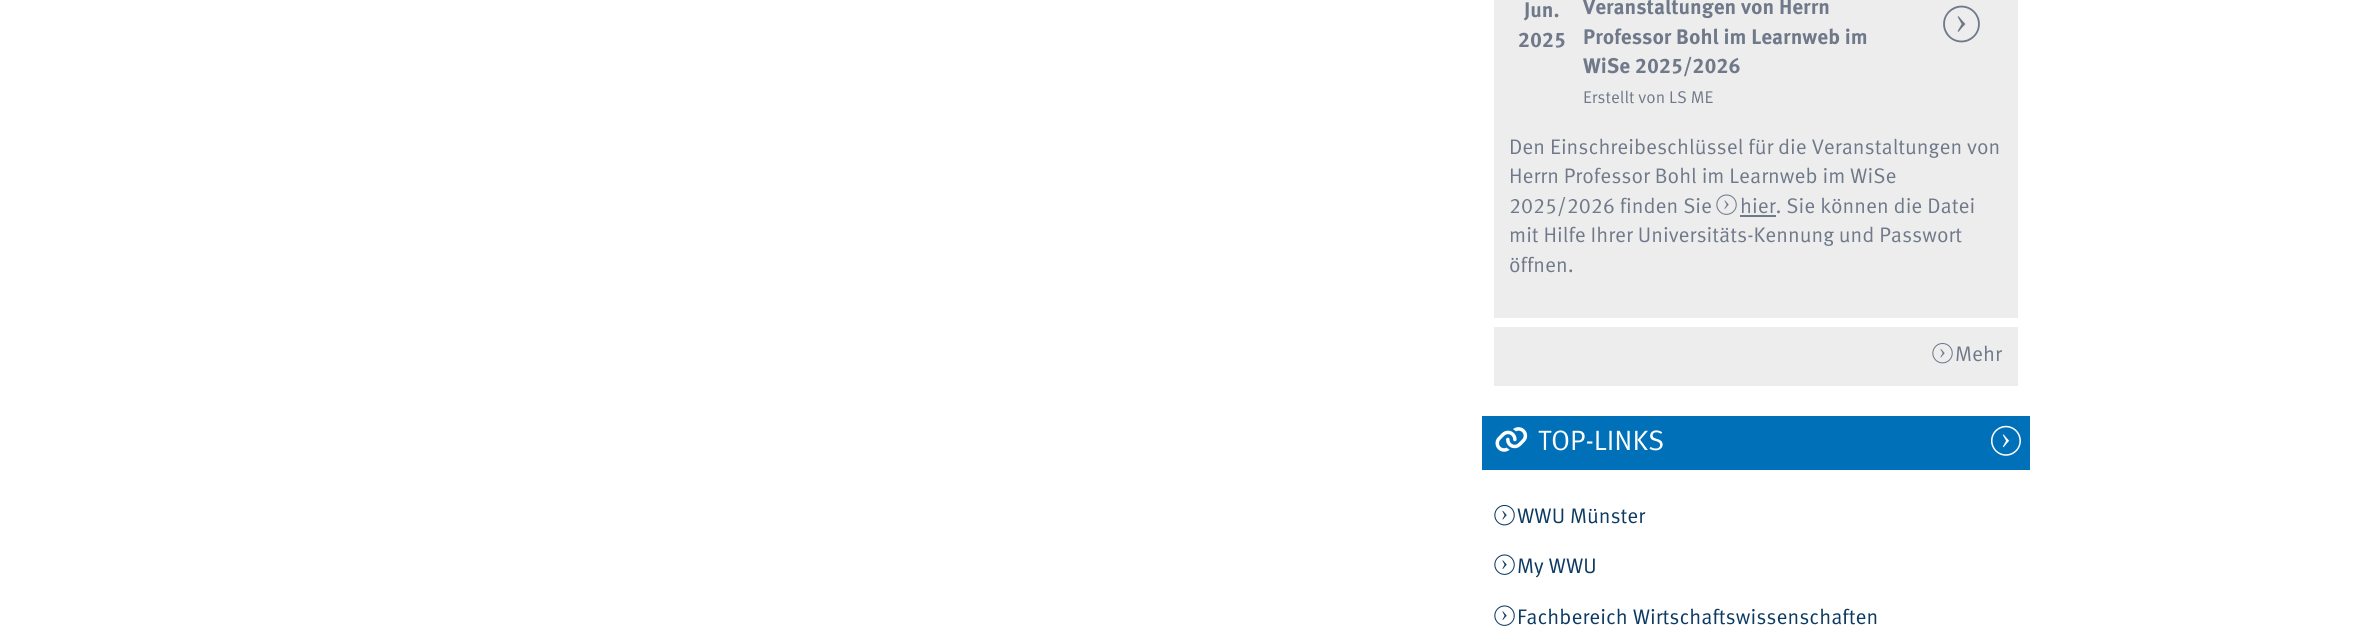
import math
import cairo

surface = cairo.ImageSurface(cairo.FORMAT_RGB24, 2362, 642)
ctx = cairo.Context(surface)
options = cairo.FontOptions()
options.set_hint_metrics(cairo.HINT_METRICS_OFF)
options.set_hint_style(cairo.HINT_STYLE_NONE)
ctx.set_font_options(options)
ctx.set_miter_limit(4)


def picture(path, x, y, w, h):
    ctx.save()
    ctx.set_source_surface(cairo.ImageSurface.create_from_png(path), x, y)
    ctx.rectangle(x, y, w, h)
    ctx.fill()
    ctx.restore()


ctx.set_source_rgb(1, 1, 1)
ctx.paint()
ctx.set_source_rgb(0.929, 0.929, 0.929)
ctx.rectangle(1494, 0, 524, 318)
ctx.fill()
ctx.select_font_face("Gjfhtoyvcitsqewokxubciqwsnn", cairo.FONT_SLANT_NORMAL, cairo.FONT_WEIGHT_BOLD)
ctx.set_font_size(21.1)
ctx.set_source_rgb(0.439, 0.475, 0.541)
ctx.move_to(1524, 17)
ctx.show_text("Jun.")
ctx.move_to(1518, 47)
ctx.show_text("2025")
ctx.move_to(1583, 14)
ctx.show_text("Veranstaltungen von Herrn")
ctx.move_to(1583, 44)
ctx.show_text("Professor Bohl im Learnweb im")
ctx.move_to(1583, 73)
ctx.show_text("WiSe 2025/2026")
ctx.select_font_face("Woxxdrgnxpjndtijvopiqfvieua")
ctx.set_font_size(17)
ctx.move_to(1583, 103)
ctx.show_text("Erstellt von LS ME")
picture("img1.png", 1943, 5, 37, 38)
ctx.set_font_size(21.1)
ctx.move_to(1509, 154)
ctx.show_text("Den Einschreibeschlüssel für die Veranstaltungen von")
ctx.move_to(1509, 183)
ctx.show_text("Herrn Professor Bohl im Learnweb im WiSe")
ctx.move_to(1509, 213)
ctx.show_text("2025/2026 finden Sie")
picture("img2.png", 1716, 194, 21, 21)
ctx.move_to(1740, 213)
ctx.show_text("hier. Sie können die Datei")
ctx.rectangle(1740, 215, 36, 2)
ctx.fill()
ctx.move_to(1509, 242)
ctx.show_text("mit Hilfe Ihrer Universitäts-Kennung und Passwort")
ctx.move_to(1509, 272)
ctx.show_text("öffnen.")
ctx.set_source_rgb(0.929, 0.929, 0.929)
ctx.rectangle(1494, 327, 524, 59)
ctx.fill()
picture("img3.png", 1932, 343, 21, 21)
ctx.set_source_rgb(0.439, 0.475, 0.541)
ctx.move_to(1955, 361)
ctx.show_text("Mehr")
ctx.set_source_rgb(0, 0.439, 0.722)
ctx.rectangle(1482, 416, 548, 54)
ctx.fill()
picture("img4.png", 1495, 427, 33, 25)
ctx.set_font_size(28)
ctx.set_source_rgb(1, 1, 1)
ctx.move_to(1538, 450)
ctx.show_text("TOP-LINKS")
picture("img5.png", 1991, 425, 30, 31)
picture("img6.png", 1494, 505, 21, 21)
ctx.set_font_size(21.1)
ctx.set_source_rgb(0.047, 0.227, 0.388)
ctx.move_to(1517, 523)
ctx.show_text("WWU Münster")
picture("img7.png", 1494, 554, 21, 21)
ctx.move_to(1517, 573)
ctx.show_text("My WWU")
picture("img7.png", 1494, 605, 21, 21)
ctx.move_to(1517, 624)
ctx.show_text("Fachbereich Wirtschaftswissenschaften")
surface.write_to_png("page.png")
